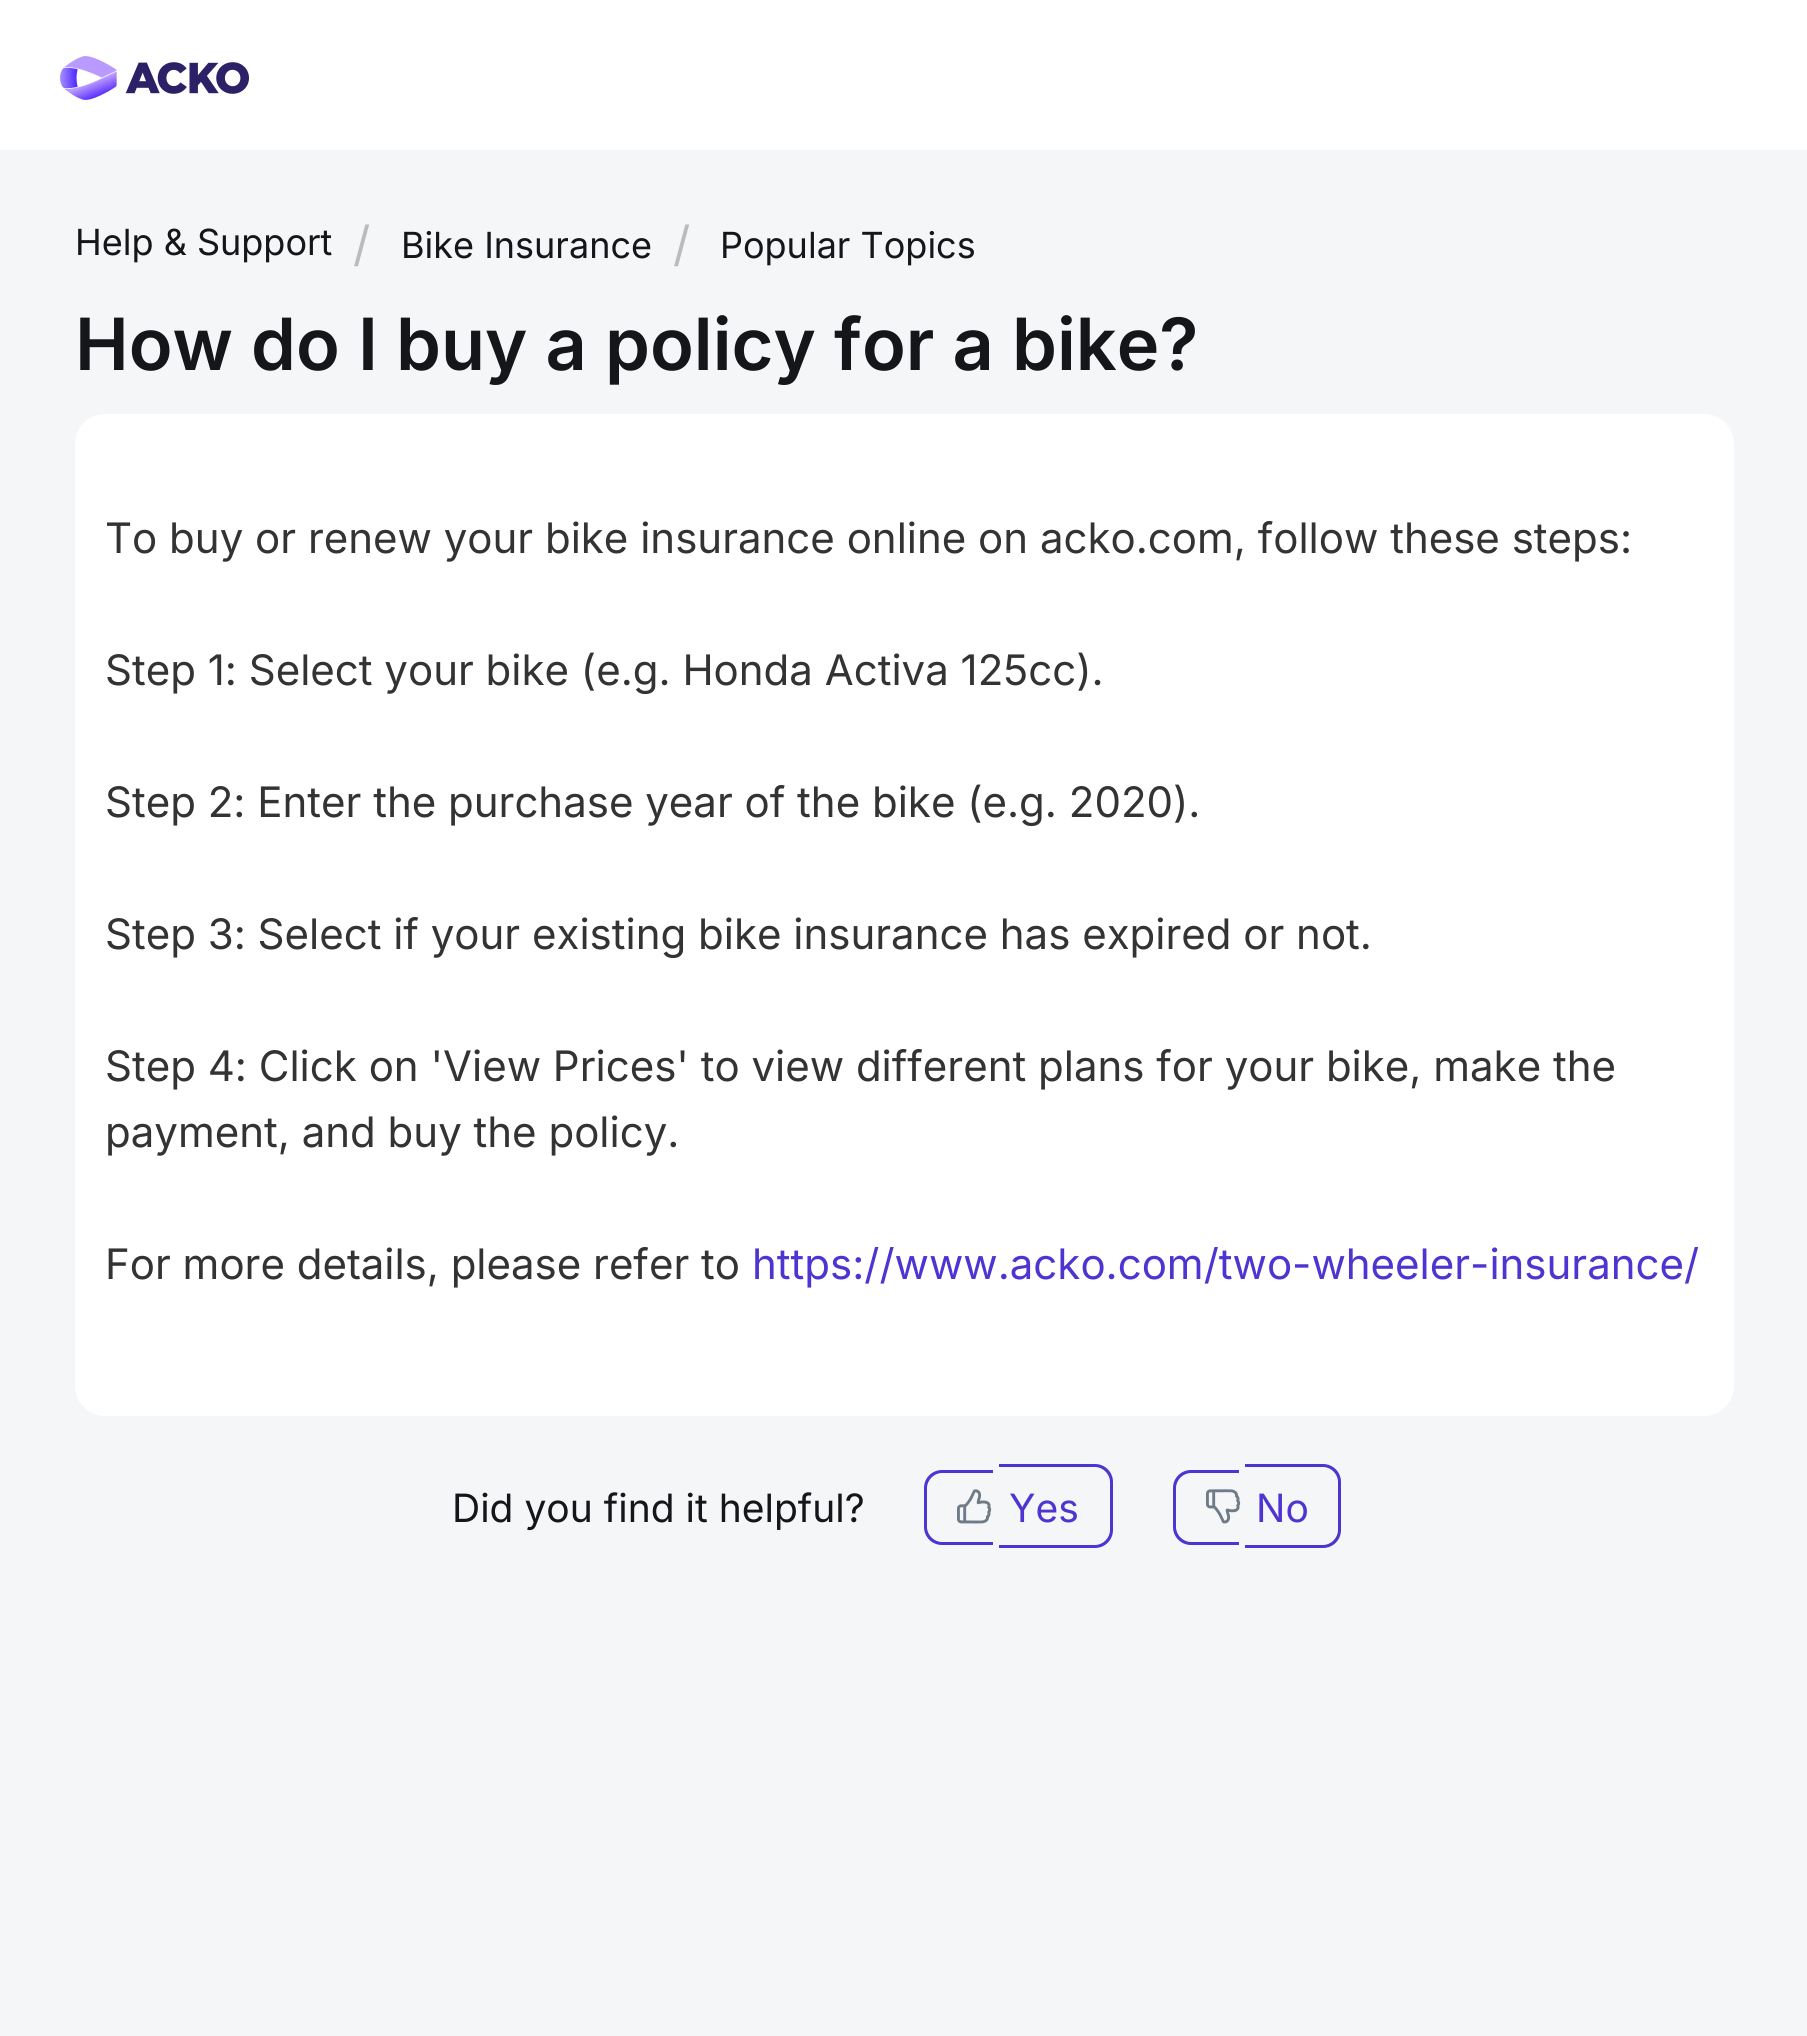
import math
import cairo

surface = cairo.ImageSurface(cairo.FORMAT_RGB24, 1807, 2036)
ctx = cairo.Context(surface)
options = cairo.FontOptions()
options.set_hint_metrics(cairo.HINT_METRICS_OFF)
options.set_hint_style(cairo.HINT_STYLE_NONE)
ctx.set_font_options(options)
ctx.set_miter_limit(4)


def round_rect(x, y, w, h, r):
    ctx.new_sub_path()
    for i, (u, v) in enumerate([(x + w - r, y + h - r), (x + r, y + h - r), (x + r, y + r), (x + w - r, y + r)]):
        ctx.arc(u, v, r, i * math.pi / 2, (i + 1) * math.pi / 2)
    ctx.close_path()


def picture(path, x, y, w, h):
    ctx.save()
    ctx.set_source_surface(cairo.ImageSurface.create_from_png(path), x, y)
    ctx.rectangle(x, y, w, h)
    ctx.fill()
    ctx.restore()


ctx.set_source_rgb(0.957, 0.961, 0.969)
ctx.paint()
ctx.set_source_rgb(1, 1, 1)
ctx.rectangle(0, 0, 1807, 150)
ctx.fill()
picture("img1.png", 60, 56, 189, 44)
ctx.select_font_face("Inter")
ctx.set_font_size(36)
ctx.set_source_rgb(0.082, 0.086, 0.098)
ctx.move_to(75, 255)
ctx.show_text("Help & Support")
ctx.set_font_size(48)
ctx.set_source_rgb(0.733, 0.733, 0.733)
ctx.move_to(353, 261)
ctx.show_text("/")
ctx.set_font_size(36)
ctx.set_source_rgb(0.082, 0.086, 0.098)
ctx.move_to(401, 258)
ctx.show_text("Bike Insurance")
ctx.set_font_size(48)
ctx.set_source_rgb(0.733, 0.733, 0.733)
ctx.move_to(673, 261)
ctx.show_text("/")
ctx.set_font_size(36)
ctx.set_source_rgb(0.082, 0.086, 0.098)
ctx.move_to(720, 258)
ctx.show_text("Popular Topics")
ctx.select_font_face("Inter SemiBold")
ctx.set_font_size(72)
ctx.move_to(75, 370)
ctx.show_text("How do I buy a policy for a bike?")
ctx.set_source_rgb(1, 1, 1)
round_rect(75, 414, 1659, 1002, 30)
ctx.fill()
ctx.select_font_face("Inter")
ctx.set_font_size(42)
ctx.set_source_rgb(0.2, 0.2, 0.2)
ctx.move_to(105, 553)
ctx.show_text("To buy or renew your bike insurance online on acko.com, follow these steps:")
ctx.move_to(105, 685)
ctx.show_text("Step 1: Select your bike (e.g. Honda Activa 125cc).")
ctx.move_to(105, 817)
ctx.show_text("Step 2: Enter the purchase year of the bike (e.g. 2020).")
ctx.move_to(105, 949)
ctx.show_text("Step 3: Select if your existing bike insurance has expired or not.")
ctx.move_to(105, 1081)
ctx.show_text("Step 4: Click on 'View Prices' to view different plans for your bike, make the")
ctx.move_to(105, 1147)
ctx.show_text("payment, and buy the policy.")
ctx.move_to(105, 1279)
ctx.show_text("For more details, please refer to")
ctx.set_source_rgb(0.31, 0.204, 0.824)
ctx.move_to(752, 1279)
ctx.show_text("https://www.acko.com/two-wheeler-insurance/")
ctx.set_font_size(39)
ctx.set_source_rgb(0.082, 0.086, 0.098)
ctx.move_to(452, 1522)
ctx.show_text("Did you find it helpful?")
ctx.set_source_rgb(0.31, 0.204, 0.824)
ctx.set_fill_rule(cairo.FILL_RULE_EVEN_ODD)
ctx.new_path()
ctx.move_to(942, 1470)
ctx.line_to(993, 1470)
ctx.line_to(993, 1545)
ctx.line_to(942, 1545)
ctx.curve_to(932, 1545, 924, 1537, 924, 1527)
ctx.line_to(924, 1488)
ctx.curve_to(924, 1478, 932, 1470, 942, 1470)
ctx.close_path()
ctx.move_to(942, 1473)
ctx.line_to(993, 1473)
ctx.line_to(993, 1542)
ctx.line_to(942, 1542)
ctx.curve_to(934, 1542, 927, 1535, 927, 1527)
ctx.line_to(927, 1488)
ctx.curve_to(927, 1480, 934, 1473, 942, 1473)
ctx.close_path()
ctx.fill()
ctx.new_path()
ctx.move_to(999, 1464)
ctx.line_to(1095, 1464)
ctx.curve_to(1105, 1464, 1113, 1472, 1113, 1482)
ctx.line_to(1113, 1530)
ctx.curve_to(1113, 1540, 1105, 1548, 1095, 1548)
ctx.line_to(999, 1548)
ctx.close_path()
ctx.move_to(999, 1467)
ctx.line_to(1095, 1467)
ctx.curve_to(1103, 1467, 1110, 1474, 1110, 1482)
ctx.line_to(1110, 1530)
ctx.curve_to(1110, 1538, 1103, 1545, 1095, 1545)
ctx.line_to(999, 1545)
ctx.close_path()
ctx.fill()
picture("img2.png", 957, 1489, 35, 35)
ctx.move_to(1009, 1522)
ctx.show_text("Yes")
ctx.new_path()
ctx.move_to(1191, 1470)
ctx.line_to(1239, 1470)
ctx.line_to(1239, 1545)
ctx.line_to(1191, 1545)
ctx.curve_to(1181, 1545, 1173, 1537, 1173, 1527)
ctx.line_to(1173, 1488)
ctx.curve_to(1173, 1478, 1181, 1470, 1191, 1470)
ctx.close_path()
ctx.move_to(1191, 1473)
ctx.line_to(1239, 1473)
ctx.line_to(1239, 1542)
ctx.line_to(1191, 1542)
ctx.curve_to(1183, 1542, 1176, 1535, 1176, 1527)
ctx.line_to(1176, 1488)
ctx.curve_to(1176, 1480, 1183, 1473, 1191, 1473)
ctx.close_path()
ctx.fill()
ctx.new_path()
ctx.move_to(1245, 1464)
ctx.line_to(1323, 1464)
ctx.curve_to(1333, 1464, 1341, 1472, 1341, 1482)
ctx.line_to(1341, 1530)
ctx.curve_to(1341, 1540, 1333, 1548, 1323, 1548)
ctx.line_to(1245, 1548)
ctx.close_path()
ctx.move_to(1245, 1467)
ctx.line_to(1323, 1467)
ctx.curve_to(1331, 1467, 1338, 1474, 1338, 1482)
ctx.line_to(1338, 1530)
ctx.curve_to(1338, 1538, 1331, 1545, 1323, 1545)
ctx.line_to(1245, 1545)
ctx.close_path()
ctx.fill()
picture("img3.png", 1206, 1489, 35, 35)
ctx.move_to(1256, 1522)
ctx.show_text("No")
surface.write_to_png("page.png")
